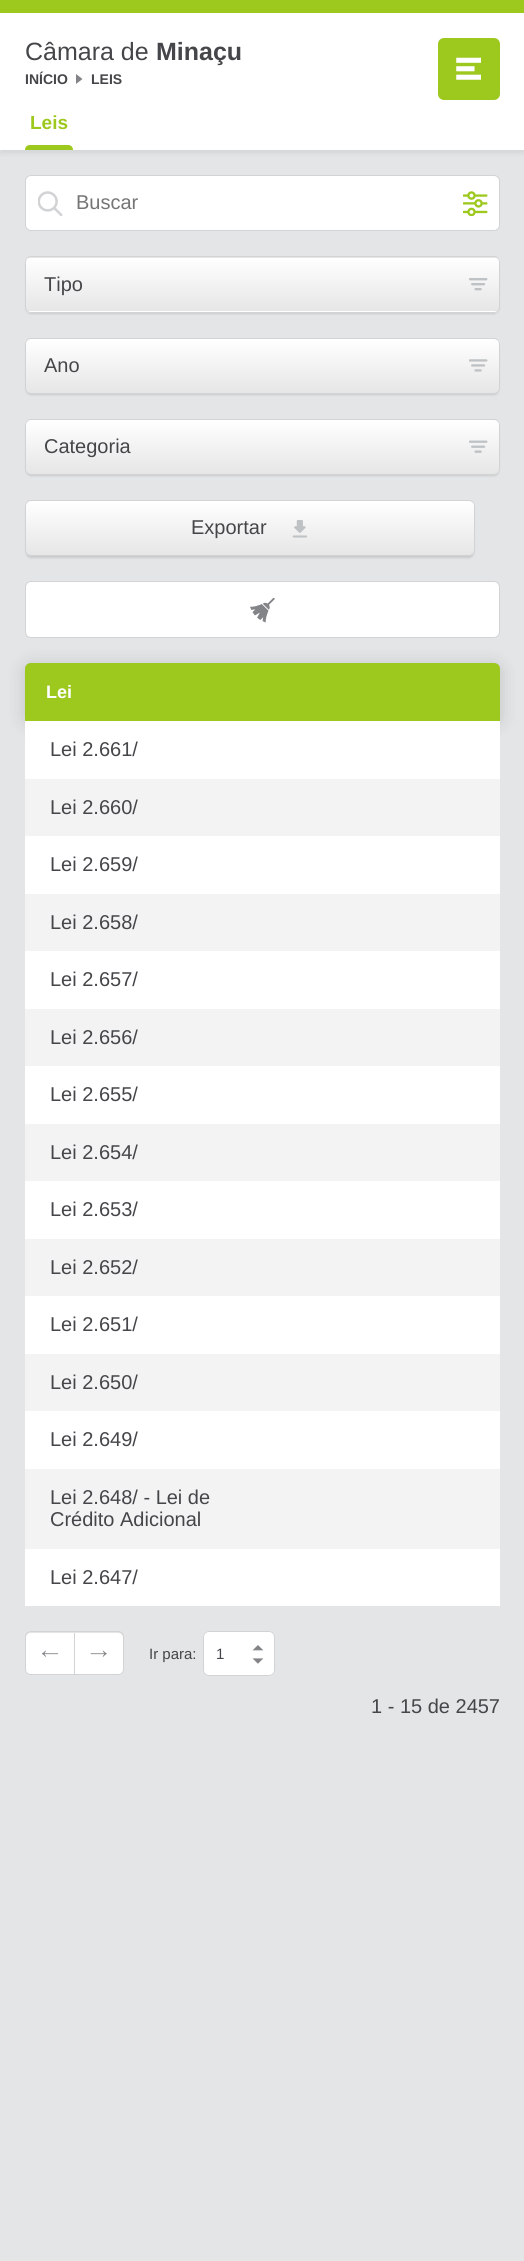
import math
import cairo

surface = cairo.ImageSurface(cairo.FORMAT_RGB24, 524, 2261)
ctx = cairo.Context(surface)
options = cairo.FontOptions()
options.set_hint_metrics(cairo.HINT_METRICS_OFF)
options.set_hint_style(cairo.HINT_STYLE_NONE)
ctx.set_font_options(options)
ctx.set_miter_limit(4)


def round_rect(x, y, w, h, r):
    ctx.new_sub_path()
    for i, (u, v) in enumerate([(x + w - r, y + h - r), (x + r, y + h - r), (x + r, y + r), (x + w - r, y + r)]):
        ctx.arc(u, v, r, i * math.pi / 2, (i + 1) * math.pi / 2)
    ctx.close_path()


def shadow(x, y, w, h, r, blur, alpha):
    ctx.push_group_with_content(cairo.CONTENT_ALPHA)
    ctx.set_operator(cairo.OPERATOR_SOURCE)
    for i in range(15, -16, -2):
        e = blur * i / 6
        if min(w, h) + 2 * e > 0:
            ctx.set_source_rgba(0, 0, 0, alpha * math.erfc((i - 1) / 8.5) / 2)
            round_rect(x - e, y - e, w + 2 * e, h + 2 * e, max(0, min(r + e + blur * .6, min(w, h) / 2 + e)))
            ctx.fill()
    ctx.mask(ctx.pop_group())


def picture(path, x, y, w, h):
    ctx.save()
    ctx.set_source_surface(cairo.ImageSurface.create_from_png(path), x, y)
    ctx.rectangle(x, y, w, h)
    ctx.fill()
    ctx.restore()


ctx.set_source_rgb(0.89, 0.898, 0.902)
ctx.paint()
ctx.set_source_rgb(1, 1, 1)
ctx.rectangle(0, 13, 524, 87)
ctx.fill()
ctx.set_source_rgb(0.616, 0.784, 0.118)
ctx.rectangle(0, 0, 524, 13)
ctx.fill()
ctx.select_font_face("Liberation Sans")
ctx.set_font_size(25)
ctx.set_source_rgb(0.267, 0.275, 0.286)
ctx.move_to(25, 60)
ctx.show_text("Câmara de")
ctx.select_font_face("Liberation Sans", cairo.FONT_SLANT_NORMAL, cairo.FONT_WEIGHT_BOLD)
ctx.move_to(156, 60)
ctx.show_text("Minaçu")
ctx.set_font_size(14)
ctx.move_to(25, 84)
ctx.show_text("INÍCIO")
ctx.set_source_rgb(0.51, 0.518, 0.529)
ctx.new_path()
ctx.move_to(76, 84)
ctx.line_to(76, 74)
ctx.line_to(82.5, 79)
ctx.close_path()
ctx.fill()
ctx.set_source_rgb(0.267, 0.275, 0.286)
ctx.move_to(91, 84)
ctx.show_text("LEIS")
ctx.set_source_rgb(0.616, 0.784, 0.118)
round_rect(438, 38, 62, 62, 6)
ctx.fill()
picture("img1.png", 456, 57, 25, 23)
ctx.set_source_rgb(0, 0, 0)
shadow(0, 104, 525, 50, 0, 2, 0.06)
ctx.set_source_rgb(1, 1, 1)
ctx.rectangle(0, 100, 524, 50)
ctx.fill()
ctx.set_font_size(19)
ctx.set_source_rgb(0.616, 0.784, 0.118)
ctx.move_to(30, 129)
ctx.show_text("Leis")
ctx.new_path()
ctx.move_to(30, 145)
ctx.line_to(68, 145)
ctx.curve_to(71, 145, 73, 147, 73, 150)
ctx.line_to(25, 150)
ctx.curve_to(25, 147, 27, 145, 30, 145)
ctx.close_path()
ctx.fill()
ctx.set_source_rgb(1, 1, 1)
round_rect(25.5, 175.5, 474, 55, 5.5)
ctx.fill_preserve()
ctx.set_source_rgb(0.824, 0.827, 0.835)
ctx.set_line_width(1)
ctx.stroke()
picture("img2.png", 38, 191, 25, 25)
ctx.select_font_face("Liberation Sans")
ctx.set_font_size(20)
ctx.set_source_rgb(0.459, 0.459, 0.459)
ctx.move_to(76, 209)
ctx.show_text("Buscar")
picture("img3.png", 463, 191, 25, 25)
ctx.set_source_rgb(0, 0, 0)
shadow(26, 260, 473, 54, 5, 1, 0.12)
ctx.save()
round_rect(25, 256, 475, 57, 6)
ctx.clip()
gradient = cairo.LinearGradient(263, 204, 263, 258)
gradient.add_color_stop_rgba(0, 1, 1, 1, 1)
gradient.add_color_stop_rgba(1, 0.902, 0.902, 0.902, 1)
ctx.set_source(gradient)
ctx.rectangle(25, 256, 475, 2)
ctx.fill()
gradient = cairo.LinearGradient(263, 257, 263, 311)
gradient.add_color_stop_rgba(0, 1, 1, 1, 1)
gradient.add_color_stop_rgba(1, 0.902, 0.902, 0.902, 1)
ctx.set_source(gradient)
ctx.rectangle(25, 258, 475, 53)
ctx.fill()
gradient = cairo.LinearGradient(263, 311, 263, 365)
gradient.add_color_stop_rgba(0, 1, 1, 1, 1)
gradient.add_color_stop_rgba(1, 0.902, 0.902, 0.902, 1)
ctx.set_source(gradient)
ctx.rectangle(25, 311, 475, 2)
ctx.fill()
ctx.restore()
round_rect(25.5, 256.5, 474, 56, 5.5)
ctx.set_source_rgb(0.824, 0.827, 0.835)
ctx.stroke()
ctx.set_source_rgb(0.267, 0.275, 0.286)
ctx.move_to(44, 291)
ctx.show_text("Tipo")
picture("img4.png", 469, 278, 19, 13)
ctx.set_source_rgb(0, 0, 0)
shadow(26, 341, 473, 54, 5, 1, 0.12)
ctx.save()
round_rect(25, 338, 475, 56, 6)
ctx.clip()
gradient = cairo.LinearGradient(263, 339, 263, 393)
gradient.add_color_stop_rgba(0, 1, 1, 1, 1)
gradient.add_color_stop_rgba(1, 0.902, 0.902, 0.902, 1)
ctx.set_source(gradient)
ctx.rectangle(25, 339, 475, 54)
ctx.fill()
ctx.restore()
round_rect(25.5, 338.5, 474, 55, 5.5)
ctx.set_source_rgb(0.824, 0.827, 0.835)
ctx.stroke()
ctx.set_source_rgb(0.267, 0.275, 0.286)
ctx.move_to(44, 372)
ctx.show_text("Ano")
picture("img5.png", 469, 359, 19, 13)
ctx.set_source_rgb(0, 0, 0)
shadow(26, 423, 473, 53, 5, 1, 0.12)
ctx.save()
round_rect(25, 419, 475, 56, 6)
ctx.clip()
gradient = cairo.LinearGradient(263, 420, 263, 474)
gradient.add_color_stop_rgba(0, 1, 1, 1, 1)
gradient.add_color_stop_rgba(1, 0.902, 0.902, 0.902, 1)
ctx.set_source(gradient)
ctx.rectangle(25, 420, 475, 54)
ctx.fill()
ctx.restore()
round_rect(25.5, 419.5, 474, 55, 5.5)
ctx.set_source_rgb(0.824, 0.827, 0.835)
ctx.stroke()
ctx.set_source_rgb(0.267, 0.275, 0.286)
ctx.move_to(44, 453)
ctx.show_text("Categoria")
picture("img6.png", 469, 440, 19, 13)
ctx.set_source_rgb(0, 0, 0)
shadow(26, 504, 448, 54, 5, 1, 0.12)
ctx.save()
round_rect(25, 500, 450, 56, 6)
ctx.clip()
gradient = cairo.LinearGradient(250, 501, 250, 555)
gradient.add_color_stop_rgba(0, 1, 1, 1, 1)
gradient.add_color_stop_rgba(1, 0.902, 0.902, 0.902, 1)
ctx.set_source(gradient)
ctx.rectangle(25, 501, 450, 54)
ctx.fill()
ctx.restore()
round_rect(25.5, 500.5, 449, 55, 5.5)
ctx.set_source_rgb(0.824, 0.827, 0.835)
ctx.stroke()
ctx.set_source_rgb(0.267, 0.275, 0.286)
ctx.move_to(191, 534)
ctx.show_text("Exportar")
picture("img7.png", 292, 520, 15, 18)
ctx.set_source_rgb(1, 1, 1)
round_rect(25.5, 581.5, 474, 56, 5.5)
ctx.fill_preserve()
ctx.set_source_rgb(0.824, 0.827, 0.835)
ctx.stroke()
picture("img8.png", 250, 598, 25, 25)
ctx.set_source_rgb(0, 0, 0)
shadow(25, 665, 475, 59, 6, 9.5, 0.15)
ctx.set_source_rgb(0.616, 0.784, 0.118)
ctx.new_path()
ctx.move_to(31, 663)
ctx.line_to(494, 663)
ctx.curve_to(497.5, 663, 500, 665.5, 500, 669)
ctx.line_to(500, 721)
ctx.line_to(25, 721)
ctx.line_to(25, 669)
ctx.curve_to(25, 665.5, 27.5, 663, 31, 663)
ctx.close_path()
ctx.fill()
ctx.select_font_face("Liberation Sans", cairo.FONT_SLANT_NORMAL, cairo.FONT_WEIGHT_BOLD)
ctx.set_font_size(18)
ctx.set_source_rgb(1, 1, 1)
ctx.move_to(46, 698)
ctx.show_text("Lei")
ctx.rectangle(25, 721, 475, 58)
ctx.fill()
ctx.select_font_face("Liberation Sans")
ctx.set_font_size(20)
ctx.set_source_rgb(0.267, 0.275, 0.286)
ctx.move_to(50, 756)
ctx.show_text("Lei 2.661/")
ctx.set_source_rgb(0.953, 0.953, 0.957)
ctx.rectangle(25, 779, 475, 57)
ctx.fill()
ctx.set_source_rgb(0.267, 0.275, 0.286)
ctx.move_to(50, 814)
ctx.show_text("Lei 2.660/")
ctx.set_source_rgb(1, 1, 1)
ctx.rectangle(25, 836, 475, 58)
ctx.fill()
ctx.set_source_rgb(0.267, 0.275, 0.286)
ctx.move_to(50, 871)
ctx.show_text("Lei 2.659/")
ctx.set_source_rgb(0.953, 0.953, 0.957)
ctx.rectangle(25, 894, 475, 57)
ctx.fill()
ctx.set_source_rgb(0.267, 0.275, 0.286)
ctx.move_to(50, 929)
ctx.show_text("Lei 2.658/")
ctx.set_source_rgb(1, 1, 1)
ctx.rectangle(25, 951, 475, 58)
ctx.fill()
ctx.set_source_rgb(0.267, 0.275, 0.286)
ctx.move_to(50, 986)
ctx.show_text("Lei 2.657/")
ctx.set_source_rgb(0.953, 0.953, 0.957)
ctx.rectangle(25, 1009, 475, 57)
ctx.fill()
ctx.set_source_rgb(0.267, 0.275, 0.286)
ctx.move_to(50, 1044)
ctx.show_text("Lei 2.656/")
ctx.set_source_rgb(1, 1, 1)
ctx.rectangle(25, 1066, 475, 58)
ctx.fill()
ctx.set_source_rgb(0.267, 0.275, 0.286)
ctx.move_to(50, 1101)
ctx.show_text("Lei 2.655/")
ctx.set_source_rgb(0.953, 0.953, 0.957)
ctx.rectangle(25, 1124, 475, 57)
ctx.fill()
ctx.set_source_rgb(0.267, 0.275, 0.286)
ctx.move_to(50, 1159)
ctx.show_text("Lei 2.654/")
ctx.set_source_rgb(1, 1, 1)
ctx.rectangle(25, 1181, 475, 58)
ctx.fill()
ctx.set_source_rgb(0.267, 0.275, 0.286)
ctx.move_to(50, 1216)
ctx.show_text("Lei 2.653/")
ctx.set_source_rgb(0.953, 0.953, 0.957)
ctx.rectangle(25, 1239, 475, 57)
ctx.fill()
ctx.set_source_rgb(0.267, 0.275, 0.286)
ctx.move_to(50, 1274)
ctx.show_text("Lei 2.652/")
ctx.set_source_rgb(1, 1, 1)
ctx.rectangle(25, 1296, 475, 58)
ctx.fill()
ctx.set_source_rgb(0.267, 0.275, 0.286)
ctx.move_to(50, 1331)
ctx.show_text("Lei 2.651/")
ctx.set_source_rgb(0.953, 0.953, 0.957)
ctx.rectangle(25, 1354, 475, 57)
ctx.fill()
ctx.set_source_rgb(0.267, 0.275, 0.286)
ctx.move_to(50, 1389)
ctx.show_text("Lei 2.650/")
ctx.set_source_rgb(1, 1, 1)
ctx.rectangle(25, 1411, 475, 58)
ctx.fill()
ctx.set_source_rgb(0.267, 0.275, 0.286)
ctx.move_to(50, 1446)
ctx.show_text("Lei 2.649/")
ctx.set_source_rgb(0.953, 0.953, 0.957)
ctx.rectangle(25, 1469, 475, 80)
ctx.fill()
ctx.set_source_rgb(0.267, 0.275, 0.286)
ctx.move_to(50, 1504)
ctx.show_text("Lei 2.648/ - Lei de")
ctx.move_to(50, 1526)
ctx.show_text("Crédito Adicional")
ctx.set_source_rgb(1, 1, 1)
ctx.rectangle(25, 1549, 475, 57)
ctx.fill()
ctx.set_source_rgb(0.267, 0.275, 0.286)
ctx.move_to(50, 1584)
ctx.show_text("Lei 2.647/")
round_rect(25.5, 1631.5, 98, 43, 5.5)
ctx.set_source_rgb(0.824, 0.827, 0.835)
ctx.stroke()
ctx.set_source_rgb(1, 1, 1)
ctx.new_path()
ctx.move_to(31, 1633)
ctx.line_to(75, 1633)
ctx.line_to(75, 1674)
ctx.line_to(31, 1674)
ctx.curve_to(28, 1674, 26, 1672, 26, 1669)
ctx.line_to(26, 1638)
ctx.curve_to(26, 1635, 28, 1633, 31, 1633)
ctx.close_path()
ctx.fill()
ctx.set_source_rgb(0.824, 0.827, 0.835)
ctx.rectangle(74, 1633, 1, 41)
ctx.fill()
picture("img9.png", 42, 1650, 17, 7)
ctx.set_source_rgb(1, 1, 1)
ctx.new_path()
ctx.move_to(75, 1633)
ctx.line_to(118, 1633)
ctx.curve_to(121, 1633, 123, 1635, 123, 1638)
ctx.line_to(123, 1669)
ctx.curve_to(123, 1672, 121, 1674, 118, 1674)
ctx.line_to(75, 1674)
ctx.close_path()
ctx.fill()
picture("img10.png", 90, 1650, 17, 7)
ctx.set_font_size(15)
ctx.set_source_rgb(0.267, 0.275, 0.286)
ctx.move_to(149, 1659)
ctx.show_text("Ir para:")
ctx.set_source_rgb(1, 1, 1)
round_rect(203, 1631, 72, 45, 6)
ctx.fill()
picture("img11.png", 252, 1645, 12, 19)
round_rect(203.5, 1631.5, 71, 44, 5.5)
ctx.set_source_rgb(0.824, 0.827, 0.835)
ctx.stroke()
ctx.set_source_rgb(0.267, 0.275, 0.286)
ctx.move_to(216, 1659)
ctx.show_text("1")
ctx.set_font_size(20)
ctx.move_to(371, 1713)
ctx.show_text("1 - 15 de 2457")
surface.write_to_png("page.png")
